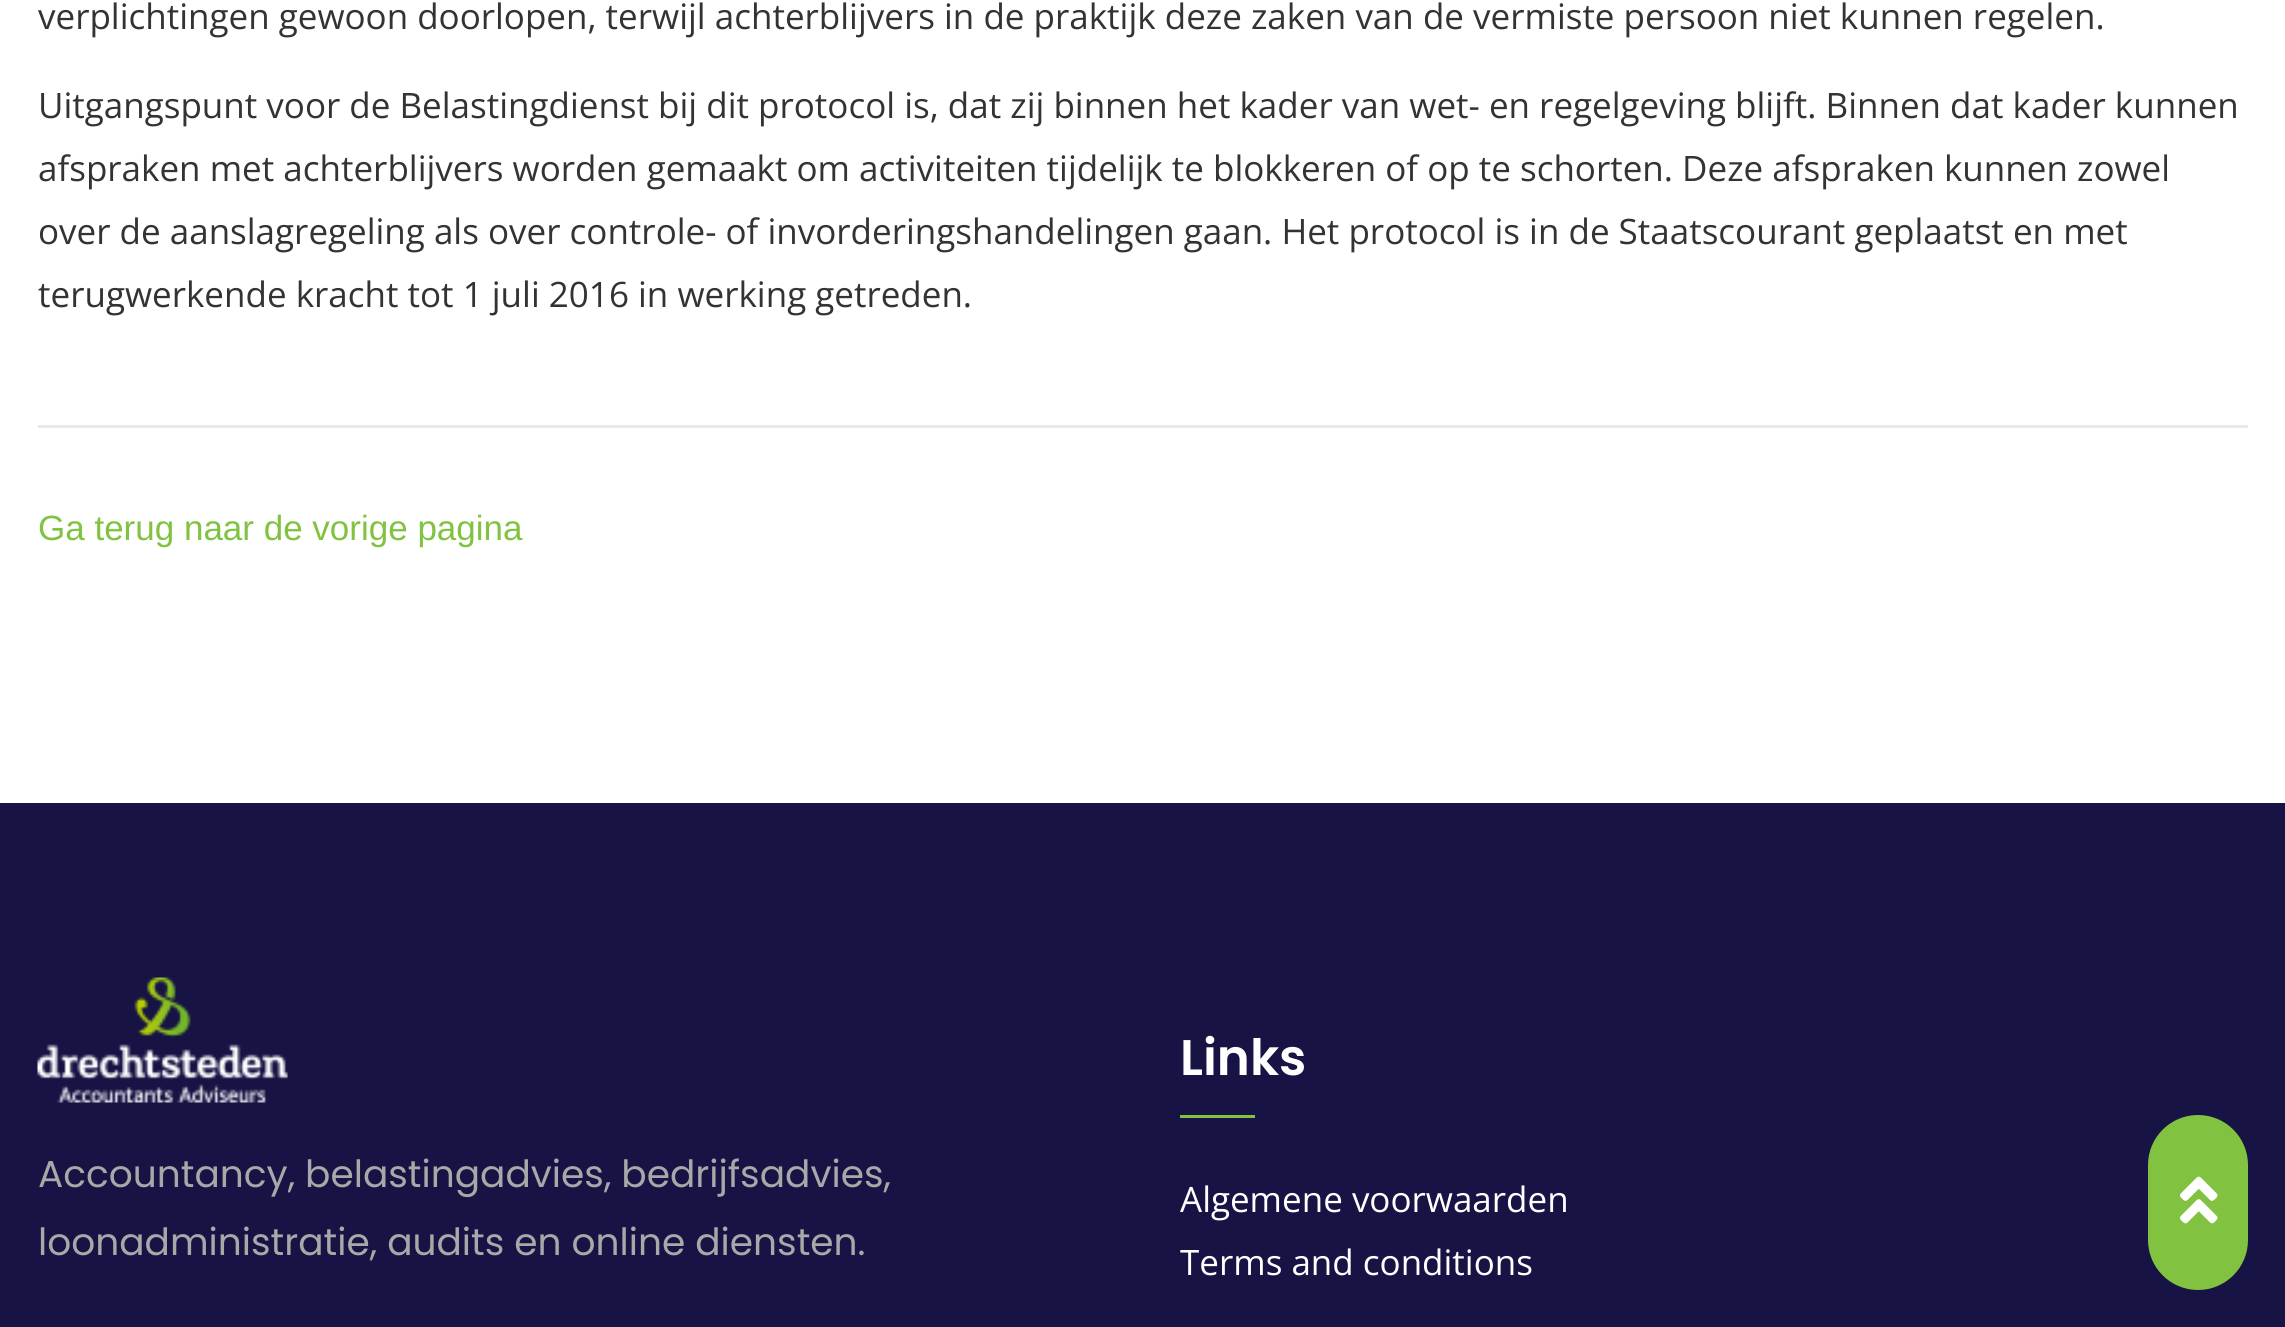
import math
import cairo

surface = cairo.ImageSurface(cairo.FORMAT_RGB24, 2285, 1327)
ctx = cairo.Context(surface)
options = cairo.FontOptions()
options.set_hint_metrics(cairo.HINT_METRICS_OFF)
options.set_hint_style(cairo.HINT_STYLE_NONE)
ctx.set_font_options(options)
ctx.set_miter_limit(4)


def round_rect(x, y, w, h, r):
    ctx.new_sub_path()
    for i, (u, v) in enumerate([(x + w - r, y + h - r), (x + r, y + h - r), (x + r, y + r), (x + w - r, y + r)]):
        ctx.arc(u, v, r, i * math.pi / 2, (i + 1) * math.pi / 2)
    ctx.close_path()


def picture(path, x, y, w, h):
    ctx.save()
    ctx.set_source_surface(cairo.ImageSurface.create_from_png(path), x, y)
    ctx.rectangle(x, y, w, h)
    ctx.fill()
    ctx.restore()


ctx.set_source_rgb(1, 1, 1)
ctx.paint()
ctx.set_source_rgb(0.914, 0.914, 0.914)
ctx.rectangle(38, 425, 2210, 3)
ctx.fill()
ctx.select_font_face("Open Sans")
ctx.set_font_size(35)
ctx.set_source_rgb(0.2, 0.2, 0.2)
ctx.move_to(38, 29)
ctx.show_text("verplichtingen gewoon doorlopen, terwijl achterblijvers in de praktijk deze zaken van de vermiste persoon niet kunnen regelen.")
ctx.move_to(38, 118)
ctx.show_text("Uitgangspunt voor de Belastingdienst bij dit protocol is, dat zij binnen het kader van wet- en regelgeving blijft. Binnen dat kader kunnen")
ctx.move_to(38, 181)
ctx.show_text("afspraken met achterblijvers worden gemaakt om activiteiten tijdelijk te blokkeren of op te schorten. Deze afspraken kunnen zowel")
ctx.move_to(38, 244)
ctx.show_text("over de aanslagregeling als over controle- of invorderingshandelingen gaan. Het protocol is in de Staatscourant geplaatst en met")
ctx.move_to(38, 307)
ctx.show_text("terugwerkende kracht tot 1 juli 2016 in werking getreden.")
ctx.select_font_face("Liberation Sans")
ctx.set_source_rgb(0.506, 0.765, 0.255)
ctx.move_to(38, 540)
ctx.show_text("Ga terug naar de vorige pagina")
ctx.set_source_rgb(0.09, 0.078, 0.267)
ctx.rectangle(0, 803, 2285, 524)
ctx.fill()
picture("img1.png", 37, 977, 251, 126)
ctx.select_font_face("Poppins")
ctx.set_font_size(37.5)
ctx.set_source_rgb(0.659, 0.659, 0.659)
ctx.move_to(38, 1187)
ctx.show_text("Accountancy, belastingadvies, bedrijfsadvies,")
ctx.move_to(38, 1255)
ctx.show_text("loonadministratie, audits en online diensten.")
ctx.select_font_face("Poppins SemiBold")
ctx.set_font_size(50)
ctx.set_source_rgb(1, 1, 1)
ctx.move_to(1180, 1075)
ctx.show_text("Links")
ctx.set_source_rgb(0.506, 0.765, 0.255)
ctx.rectangle(1180, 1115, 75, 3)
ctx.fill()
ctx.select_font_face("Open Sans")
ctx.set_font_size(35)
ctx.set_source_rgb(1, 1, 1)
ctx.move_to(1180, 1212)
ctx.show_text("Algemene voorwaarden")
ctx.move_to(1180, 1275)
ctx.show_text("Terms and conditions")
ctx.set_source_rgb(0.506, 0.765, 0.255)
round_rect(2150.5, 1117.5, 95, 170, 47.5)
ctx.fill_preserve()
ctx.set_line_width(5)
ctx.stroke()
picture("img2.png", 2180, 1176, 38, 48)
surface.write_to_png("page.png")
